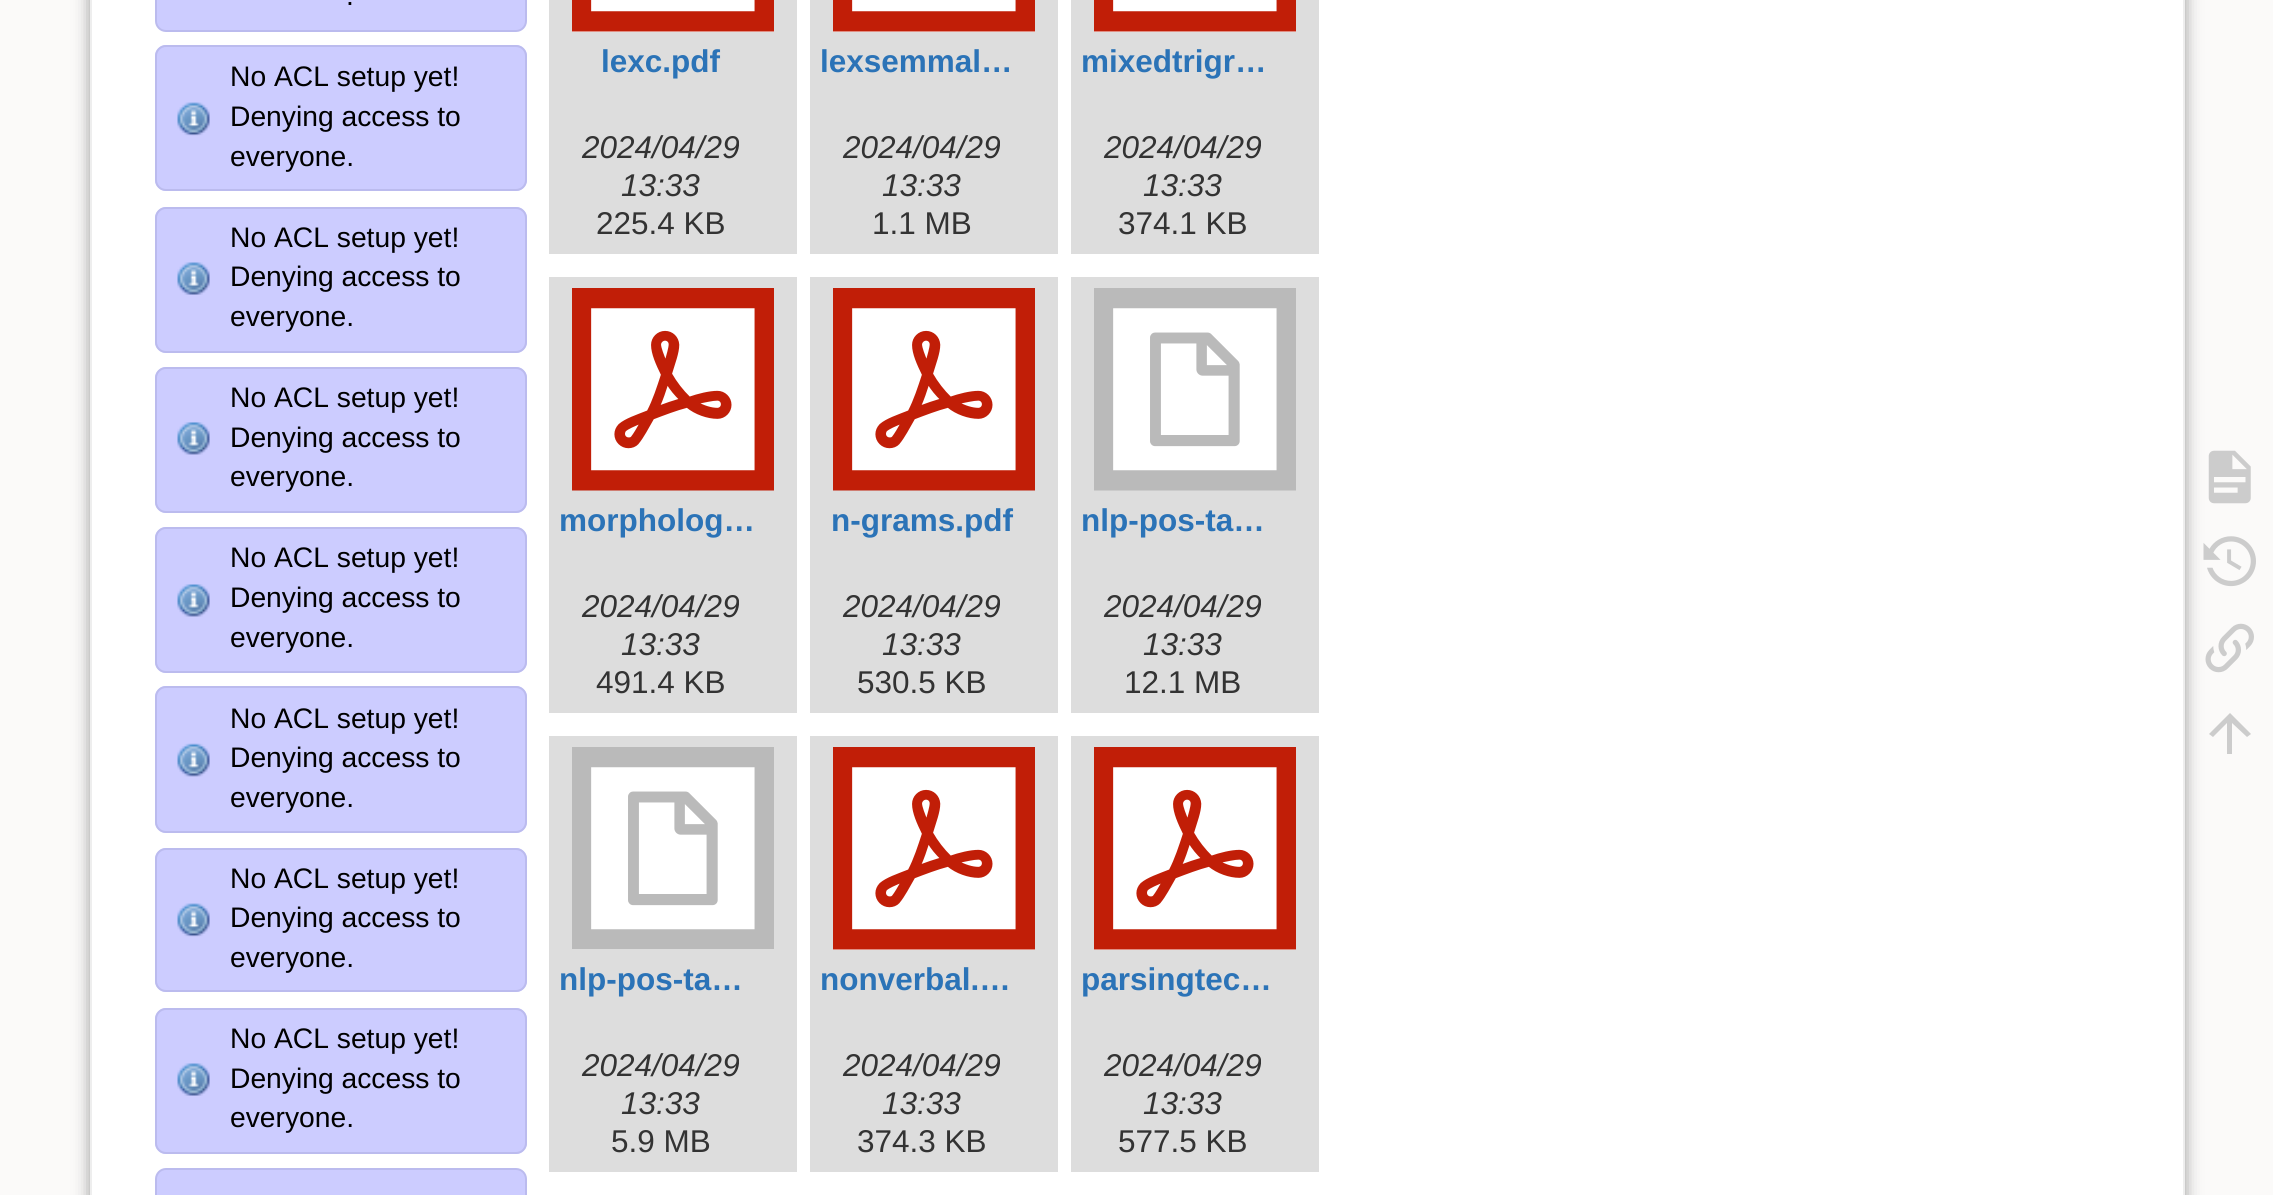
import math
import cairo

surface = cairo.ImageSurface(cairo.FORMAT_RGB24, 2273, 1195)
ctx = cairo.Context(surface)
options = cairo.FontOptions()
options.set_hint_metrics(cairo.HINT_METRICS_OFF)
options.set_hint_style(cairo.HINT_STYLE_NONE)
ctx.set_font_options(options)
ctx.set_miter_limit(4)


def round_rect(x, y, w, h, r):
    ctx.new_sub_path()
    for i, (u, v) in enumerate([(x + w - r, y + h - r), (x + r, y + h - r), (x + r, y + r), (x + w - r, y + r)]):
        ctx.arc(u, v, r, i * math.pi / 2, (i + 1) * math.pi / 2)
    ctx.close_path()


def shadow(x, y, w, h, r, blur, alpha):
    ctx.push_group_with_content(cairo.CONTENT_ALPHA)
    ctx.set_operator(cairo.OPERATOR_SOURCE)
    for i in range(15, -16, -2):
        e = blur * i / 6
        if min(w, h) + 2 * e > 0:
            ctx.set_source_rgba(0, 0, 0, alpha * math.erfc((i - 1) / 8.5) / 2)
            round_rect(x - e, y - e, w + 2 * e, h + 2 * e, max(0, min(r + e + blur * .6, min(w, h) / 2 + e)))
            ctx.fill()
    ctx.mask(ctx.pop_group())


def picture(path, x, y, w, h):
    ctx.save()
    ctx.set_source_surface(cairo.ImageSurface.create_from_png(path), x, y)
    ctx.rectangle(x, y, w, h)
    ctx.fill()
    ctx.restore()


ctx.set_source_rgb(0.984, 0.98, 0.976)
ctx.paint()
ctx.set_source_rgb(0.6, 0.6, 0.6)
shadow(90, -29, 2095, 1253, 5, 8, 1)
ctx.set_source_rgb(1, 1, 1)
ctx.rectangle(91, -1, 2093, 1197)
ctx.fill_preserve()
ctx.set_source_rgb(0.933, 0.933, 0.933)
ctx.stroke()
ctx.set_source_rgb(0.8, 0.8, 1)
round_rect(156, -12, 370, 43, 10)
ctx.fill_preserve()
ctx.set_source_rgb(0.733, 0.733, 0.933)
ctx.stroke()
ctx.select_font_face("Liberation Sans")
ctx.set_font_size(28.25)
ctx.set_source_rgb(0, 0, 0)
ctx.move_to(346, 5)
ctx.show_text(".")
ctx.set_source_rgb(0.8, 0.8, 1)
round_rect(155, 45, 372, 146, 11)
ctx.fill()
picture("img1.png", 177, 102, 33, 34)
round_rect(156, 46, 370, 144, 10)
ctx.set_source_rgb(0.733, 0.733, 0.933)
ctx.stroke()
ctx.set_source_rgb(0, 0, 0)
ctx.move_to(230, 86)
ctx.show_text("No ACL setup yet!")
ctx.move_to(230, 126)
ctx.show_text("Denying access to")
ctx.move_to(230, 166)
ctx.show_text("everyone.")
ctx.set_source_rgb(0.8, 0.8, 1)
round_rect(155, 207, 372, 146, 11)
ctx.fill()
picture("img2.png", 177, 262, 33, 33)
round_rect(156, 208, 370, 144, 10)
ctx.set_source_rgb(0.733, 0.733, 0.933)
ctx.stroke()
ctx.set_source_rgb(0, 0, 0)
ctx.move_to(230, 247)
ctx.show_text("No ACL setup yet!")
ctx.move_to(230, 286)
ctx.show_text("Denying access to")
ctx.move_to(230, 326)
ctx.show_text("everyone.")
ctx.set_source_rgb(0.8, 0.8, 1)
round_rect(155, 367, 372, 146, 11)
ctx.fill()
picture("img3.png", 177, 422, 33, 33)
round_rect(156, 368, 370, 144, 10)
ctx.set_source_rgb(0.733, 0.733, 0.933)
ctx.stroke()
ctx.set_source_rgb(0, 0, 0)
ctx.move_to(230, 407)
ctx.show_text("No ACL setup yet!")
ctx.move_to(230, 447)
ctx.show_text("Denying access to")
ctx.move_to(230, 486)
ctx.show_text("everyone.")
ctx.set_source_rgb(0.8, 0.8, 1)
round_rect(155, 527, 372, 146, 11)
ctx.fill()
picture("img4.png", 177, 584, 33, 33)
round_rect(156, 528, 370, 144, 10)
ctx.set_source_rgb(0.733, 0.733, 0.933)
ctx.stroke()
ctx.set_source_rgb(0, 0, 0)
ctx.move_to(230, 567)
ctx.show_text("No ACL setup yet!")
ctx.move_to(230, 607)
ctx.show_text("Denying access to")
ctx.move_to(230, 647)
ctx.show_text("everyone.")
ctx.set_source_rgb(0.8, 0.8, 1)
round_rect(155, 686, 372, 147, 11)
ctx.fill()
picture("img5.png", 177, 743, 33, 34)
round_rect(156, 687, 370, 145, 10)
ctx.set_source_rgb(0.733, 0.733, 0.933)
ctx.stroke()
ctx.set_source_rgb(0, 0, 0)
ctx.move_to(230, 728)
ctx.show_text("No ACL setup yet!")
ctx.move_to(230, 767)
ctx.show_text("Denying access to")
ctx.move_to(230, 807)
ctx.show_text("everyone.")
ctx.set_source_rgb(0.8, 0.8, 1)
round_rect(155, 848, 372, 144, 11)
ctx.fill()
picture("img1.png", 177, 903, 33, 34)
round_rect(156, 849, 370, 142, 10)
ctx.set_source_rgb(0.733, 0.733, 0.933)
ctx.stroke()
ctx.set_source_rgb(0, 0, 0)
ctx.move_to(230, 888)
ctx.show_text("No ACL setup yet!")
ctx.move_to(230, 927)
ctx.show_text("Denying access to")
ctx.move_to(230, 967)
ctx.show_text("everyone.")
ctx.set_source_rgb(0.8, 0.8, 1)
round_rect(155, 1008, 372, 146, 11)
ctx.fill()
picture("img2.png", 177, 1063, 33, 33)
round_rect(156, 1009, 370, 144, 10)
ctx.set_source_rgb(0.733, 0.733, 0.933)
ctx.stroke()
ctx.set_source_rgb(0, 0, 0)
ctx.move_to(230, 1048)
ctx.show_text("No ACL setup yet!")
ctx.move_to(230, 1088)
ctx.show_text("Denying access to")
ctx.move_to(230, 1127)
ctx.show_text("everyone.")
ctx.set_source_rgb(0.8, 0.8, 1)
round_rect(156, 1169, 370, 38, 10)
ctx.fill_preserve()
ctx.set_source_rgb(0.733, 0.733, 0.933)
ctx.stroke()
ctx.set_source_rgb(0.867, 0.867, 0.867)
ctx.rectangle(549, 0, 248, 254)
ctx.fill()
picture("img6.png", 572, 0, 202, 32)
ctx.select_font_face("Liberation Sans", cairo.FONT_SLANT_NORMAL, cairo.FONT_WEIGHT_BOLD)
ctx.set_font_size(31.5)
ctx.set_source_rgb(0.169, 0.451, 0.718)
ctx.move_to(601, 72)
ctx.show_text("lexc.pdf")
ctx.select_font_face("Liberation Sans", cairo.FONT_SLANT_ITALIC)
ctx.set_source_rgb(0.2, 0.2, 0.2)
ctx.move_to(582, 158)
ctx.show_text("2024/04/29")
ctx.move_to(621, 196)
ctx.show_text("13:33")
ctx.select_font_face("Liberation Sans")
ctx.move_to(596, 234)
ctx.show_text("225.4 KB")
ctx.set_source_rgb(0.867, 0.867, 0.867)
ctx.rectangle(810, 0, 248, 254)
ctx.fill()
picture("img6.png", 833, 0, 202, 32)
ctx.select_font_face("Liberation Sans", cairo.FONT_SLANT_NORMAL, cairo.FONT_WEIGHT_BOLD)
ctx.set_source_rgb(0.169, 0.451, 0.718)
ctx.move_to(820, 72)
ctx.show_text("lexsemmal…")
ctx.select_font_face("Liberation Sans", cairo.FONT_SLANT_ITALIC)
ctx.set_source_rgb(0.2, 0.2, 0.2)
ctx.move_to(843, 158)
ctx.show_text("2024/04/29")
ctx.move_to(882, 196)
ctx.show_text("13:33")
ctx.select_font_face("Liberation Sans")
ctx.move_to(872, 234)
ctx.show_text("1.1 MB")
ctx.set_source_rgb(0.867, 0.867, 0.867)
ctx.rectangle(1071, 0, 248, 254)
ctx.fill()
picture("img6.png", 1094, 0, 202, 32)
ctx.select_font_face("Liberation Sans", cairo.FONT_SLANT_NORMAL, cairo.FONT_WEIGHT_BOLD)
ctx.set_source_rgb(0.169, 0.451, 0.718)
ctx.move_to(1081, 72)
ctx.show_text("mixedtrigr…")
ctx.select_font_face("Liberation Sans", cairo.FONT_SLANT_ITALIC)
ctx.set_source_rgb(0.2, 0.2, 0.2)
ctx.move_to(1104, 158)
ctx.show_text("2024/04/29")
ctx.move_to(1143, 196)
ctx.show_text("13:33")
ctx.select_font_face("Liberation Sans")
ctx.move_to(1118, 234)
ctx.show_text("374.1 KB")
ctx.set_source_rgb(0.867, 0.867, 0.867)
ctx.rectangle(549, 277, 248, 436)
ctx.fill()
picture("img7.png", 572, 288, 202, 203)
ctx.select_font_face("Liberation Sans", cairo.FONT_SLANT_NORMAL, cairo.FONT_WEIGHT_BOLD)
ctx.set_source_rgb(0.169, 0.451, 0.718)
ctx.move_to(559, 531)
ctx.show_text("morpholog…")
ctx.select_font_face("Liberation Sans", cairo.FONT_SLANT_ITALIC)
ctx.set_source_rgb(0.2, 0.2, 0.2)
ctx.move_to(582, 617)
ctx.show_text("2024/04/29")
ctx.move_to(621, 655)
ctx.show_text("13:33")
ctx.select_font_face("Liberation Sans")
ctx.move_to(596, 693)
ctx.show_text("491.4 KB")
ctx.set_source_rgb(0.867, 0.867, 0.867)
ctx.rectangle(810, 277, 248, 436)
ctx.fill()
picture("img7.png", 833, 288, 202, 203)
ctx.select_font_face("Liberation Sans", cairo.FONT_SLANT_NORMAL, cairo.FONT_WEIGHT_BOLD)
ctx.set_source_rgb(0.169, 0.451, 0.718)
ctx.move_to(831, 531)
ctx.show_text("n-grams.pdf")
ctx.select_font_face("Liberation Sans", cairo.FONT_SLANT_ITALIC)
ctx.set_source_rgb(0.2, 0.2, 0.2)
ctx.move_to(843, 617)
ctx.show_text("2024/04/29")
ctx.move_to(882, 655)
ctx.show_text("13:33")
ctx.select_font_face("Liberation Sans")
ctx.move_to(857, 693)
ctx.show_text("530.5 KB")
ctx.set_source_rgb(0.867, 0.867, 0.867)
ctx.rectangle(1071, 277, 248, 436)
ctx.fill()
picture("img8.png", 1094, 288, 202, 203)
ctx.select_font_face("Liberation Sans", cairo.FONT_SLANT_NORMAL, cairo.FONT_WEIGHT_BOLD)
ctx.set_source_rgb(0.169, 0.451, 0.718)
ctx.move_to(1081, 531)
ctx.show_text("nlp-pos-ta…")
ctx.select_font_face("Liberation Sans", cairo.FONT_SLANT_ITALIC)
ctx.set_source_rgb(0.2, 0.2, 0.2)
ctx.move_to(1104, 617)
ctx.show_text("2024/04/29")
ctx.move_to(1143, 655)
ctx.show_text("13:33")
ctx.select_font_face("Liberation Sans")
ctx.move_to(1124, 693)
ctx.show_text("12.1 MB")
ctx.set_source_rgb(0.867, 0.867, 0.867)
ctx.rectangle(549, 736, 248, 436)
ctx.fill()
picture("img9.png", 572, 747, 202, 202)
ctx.select_font_face("Liberation Sans", cairo.FONT_SLANT_NORMAL, cairo.FONT_WEIGHT_BOLD)
ctx.set_source_rgb(0.169, 0.451, 0.718)
ctx.move_to(559, 990)
ctx.show_text("nlp-pos-ta…")
ctx.select_font_face("Liberation Sans", cairo.FONT_SLANT_ITALIC)
ctx.set_source_rgb(0.2, 0.2, 0.2)
ctx.move_to(582, 1076)
ctx.show_text("2024/04/29")
ctx.move_to(621, 1114)
ctx.show_text("13:33")
ctx.select_font_face("Liberation Sans")
ctx.move_to(611, 1152)
ctx.show_text("5.9 MB")
ctx.set_source_rgb(0.867, 0.867, 0.867)
ctx.rectangle(810, 736, 248, 436)
ctx.fill()
picture("img10.png", 833, 747, 202, 203)
ctx.select_font_face("Liberation Sans", cairo.FONT_SLANT_NORMAL, cairo.FONT_WEIGHT_BOLD)
ctx.set_source_rgb(0.169, 0.451, 0.718)
ctx.move_to(820, 990)
ctx.show_text("nonverbal.…")
ctx.select_font_face("Liberation Sans", cairo.FONT_SLANT_ITALIC)
ctx.set_source_rgb(0.2, 0.2, 0.2)
ctx.move_to(843, 1076)
ctx.show_text("2024/04/29")
ctx.move_to(882, 1114)
ctx.show_text("13:33")
ctx.select_font_face("Liberation Sans")
ctx.move_to(857, 1152)
ctx.show_text("374.3 KB")
ctx.set_source_rgb(0.867, 0.867, 0.867)
ctx.rectangle(1071, 736, 248, 436)
ctx.fill()
picture("img10.png", 1094, 747, 202, 203)
ctx.select_font_face("Liberation Sans", cairo.FONT_SLANT_NORMAL, cairo.FONT_WEIGHT_BOLD)
ctx.set_source_rgb(0.169, 0.451, 0.718)
ctx.move_to(1081, 990)
ctx.show_text("parsingtec…")
ctx.select_font_face("Liberation Sans", cairo.FONT_SLANT_ITALIC)
ctx.set_source_rgb(0.2, 0.2, 0.2)
ctx.move_to(1104, 1076)
ctx.show_text("2024/04/29")
ctx.move_to(1143, 1114)
ctx.show_text("13:33")
ctx.select_font_face("Liberation Sans")
ctx.move_to(1118, 1152)
ctx.show_text("577.5 KB")
picture("img11.png", 2208, 450, 43, 54)
picture("img12.png", 2203, 536, 53, 51)
picture("img13.png", 2205, 623, 49, 50)
ctx.set_source_rgb(0.8, 0.8, 0.8)
ctx.new_path()
ctx.move_to(2232, 754)
ctx.line_to(2227, 754)
ctx.line_to(2227, 723)
ctx.line_to(2213, 737)
ctx.line_to(2209, 734)
ctx.line_to(2230, 713)
ctx.line_to(2251, 734)
ctx.line_to(2247, 737)
ctx.line_to(2232, 723)
ctx.close_path()
ctx.fill()
surface.write_to_png("page.png")
